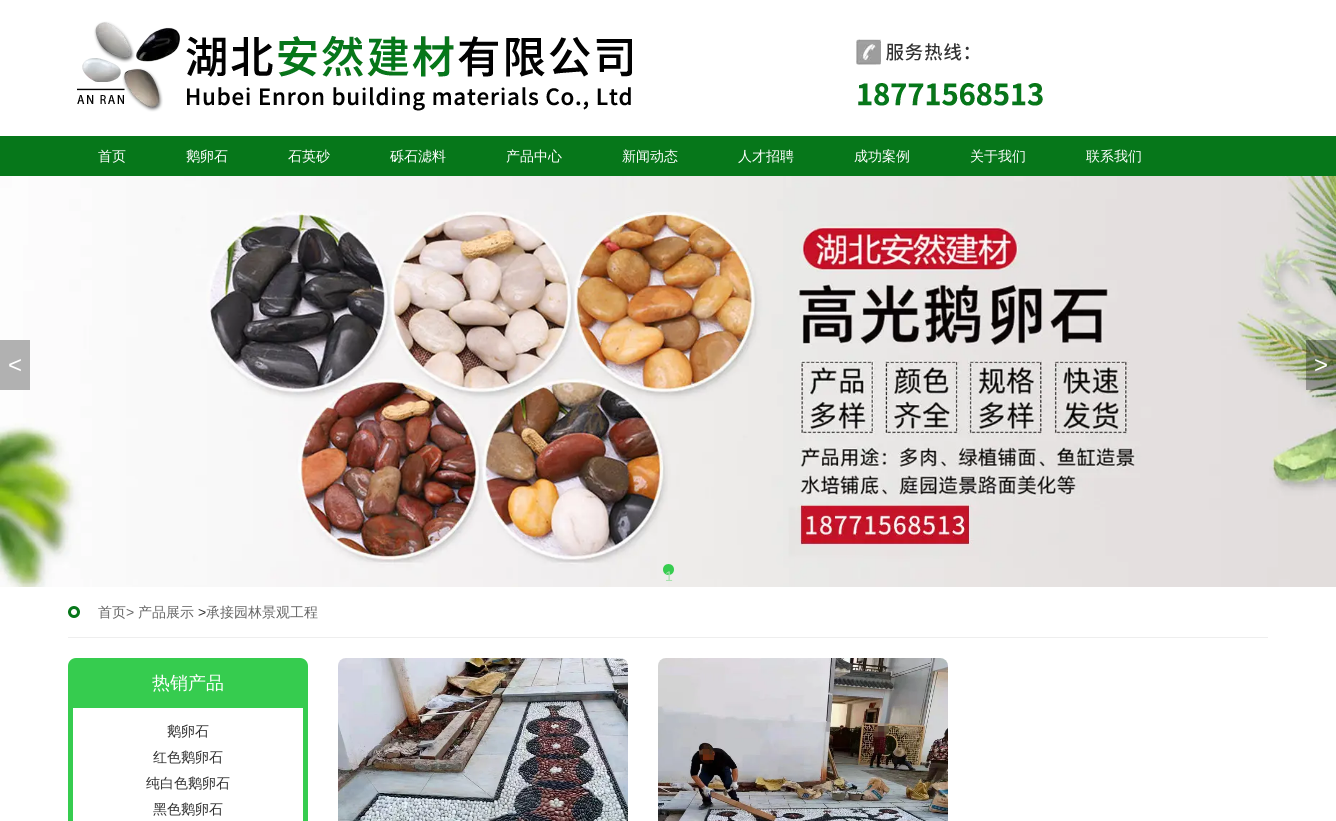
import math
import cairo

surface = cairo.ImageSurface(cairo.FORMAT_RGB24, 1336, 821)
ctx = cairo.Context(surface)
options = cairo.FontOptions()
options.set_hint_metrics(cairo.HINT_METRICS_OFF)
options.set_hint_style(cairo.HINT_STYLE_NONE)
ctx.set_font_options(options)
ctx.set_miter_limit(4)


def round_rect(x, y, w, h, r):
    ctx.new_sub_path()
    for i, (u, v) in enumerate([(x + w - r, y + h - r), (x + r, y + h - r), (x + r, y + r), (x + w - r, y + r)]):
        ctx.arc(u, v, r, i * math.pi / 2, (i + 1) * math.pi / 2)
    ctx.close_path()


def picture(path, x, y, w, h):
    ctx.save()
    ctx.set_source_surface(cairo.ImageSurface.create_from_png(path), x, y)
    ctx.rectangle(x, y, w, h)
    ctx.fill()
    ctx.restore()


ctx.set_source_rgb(1, 1, 1)
ctx.paint()
picture("img1.png", 77, 21, 966, 91)
ctx.set_source_rgb(0.027, 0.467, 0.102)
ctx.rectangle(0, 136, 1336, 40)
ctx.fill()
ctx.select_font_face("WenQuanYi Zen Hei Medium")
ctx.set_font_size(14)
ctx.set_source_rgb(1, 1, 1)
ctx.move_to(98, 161)
ctx.show_text("首页")
ctx.move_to(186, 161)
ctx.show_text("鹅卵石")
ctx.move_to(288, 161)
ctx.show_text("石英砂")
ctx.move_to(390, 161)
ctx.show_text("砾石滤料")
ctx.move_to(506, 161)
ctx.show_text("产品中心")
ctx.move_to(622, 161)
ctx.show_text("新闻动态")
ctx.move_to(738, 161)
ctx.show_text("人才招聘")
ctx.move_to(854, 161)
ctx.show_text("成功案例")
ctx.move_to(970, 161)
ctx.show_text("关于我们")
ctx.move_to(1086, 161)
ctx.show_text("联系我们")
picture("img2.png", 0, 176, 1336, 411)
ctx.set_source_rgb(0.694, 0.694, 0.694)
ctx.rectangle(0, 340, 30, 50)
ctx.fill()
ctx.select_font_face("Liberation Sans")
ctx.set_font_size(24)
ctx.set_source_rgb(1, 1, 1)
ctx.move_to(8, 373)
ctx.show_text("<")
ctx.set_source_rgba(0, 0, 0, 0.3)
ctx.rectangle(1306, 340, 30, 50)
ctx.fill()
ctx.set_source_rgb(1, 1, 1)
ctx.move_to(1314, 373)
ctx.show_text(">")
ctx.set_source_rgb(0.212, 0.8, 0.31)
ctx.new_path()
ctx.arc(668.5, 569.5, 4.5, 0, 2 * math.pi)
ctx.fill_preserve()
ctx.stroke()
ctx.set_font_size(14)
ctx.set_source_rgb(0.655, 0.878, 0.682)
ctx.move_to(665, 581)
ctx.show_text("1")
picture("img3.png", 68, 606, 12, 12)
ctx.set_source_rgb(0.933, 0.933, 0.933)
ctx.rectangle(68, 637, 1200, 1)
ctx.fill()
ctx.select_font_face("WenQuanYi Zen Hei Medium")
ctx.set_source_rgb(0.4, 0.4, 0.4)
ctx.move_to(98, 617)
ctx.show_text("首页")
ctx.select_font_face("Liberation Sans")
ctx.move_to(126, 617)
ctx.show_text(">")
ctx.select_font_face("WenQuanYi Zen Hei Medium")
ctx.move_to(138, 617)
ctx.show_text("产品展示")
ctx.select_font_face("Liberation Sans")
ctx.set_source_rgb(0.192, 0.192, 0.192)
ctx.move_to(198, 617)
ctx.show_text(">")
ctx.select_font_face("WenQuanYi Zen Hei Medium")
ctx.set_source_rgb(0.4, 0.4, 0.4)
ctx.move_to(206, 617)
ctx.show_text("承接园林景观工程")
ctx.set_source_rgb(0.212, 0.8, 0.31)
round_rect(68, 658, 240, 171, 8)
ctx.fill()
ctx.set_font_size(18)
ctx.set_source_rgb(1, 1, 1)
ctx.move_to(152, 689)
ctx.show_text("热销产品")
ctx.rectangle(73, 708, 230, 113)
ctx.fill()
ctx.set_font_size(14)
ctx.set_source_rgb(0.192, 0.192, 0.192)
ctx.move_to(167, 736)
ctx.show_text("鹅卵石")
ctx.move_to(153, 762)
ctx.show_text("红色鹅卵石")
ctx.move_to(146, 788)
ctx.show_text("纯白色鹅卵石")
ctx.move_to(153, 814)
ctx.show_text("黑色鹅卵石")
picture("img4.png", 338, 658, 290, 163)
picture("img5.png", 658, 658, 290, 163)
surface.write_to_png("page.png")
